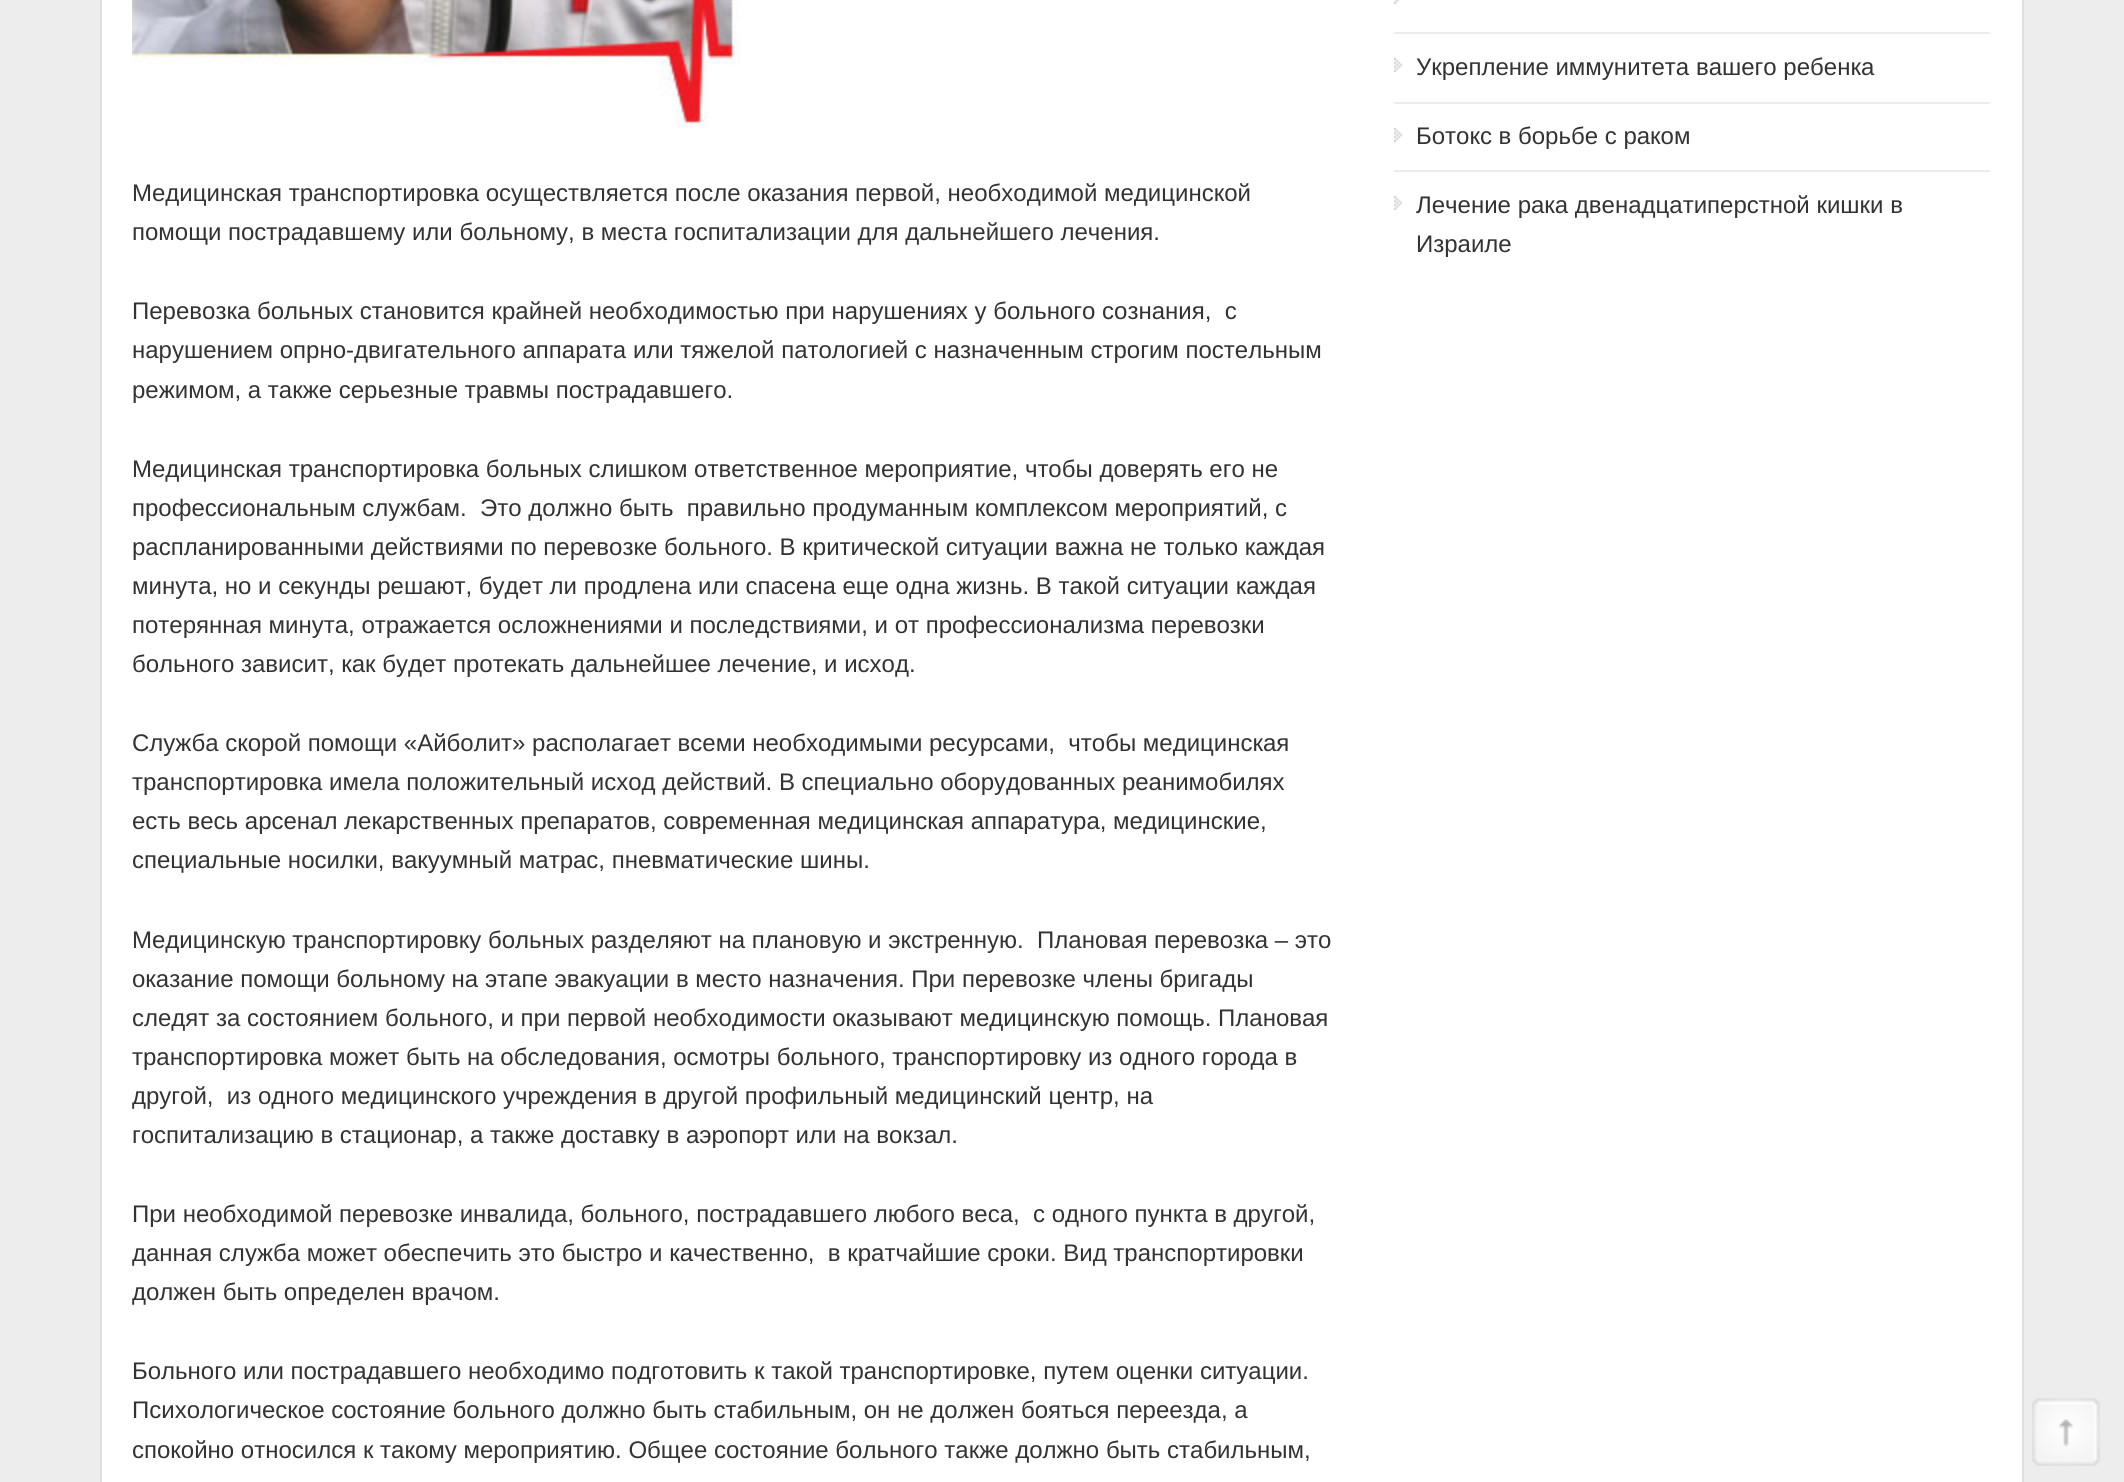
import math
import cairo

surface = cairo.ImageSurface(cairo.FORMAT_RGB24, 2124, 1482)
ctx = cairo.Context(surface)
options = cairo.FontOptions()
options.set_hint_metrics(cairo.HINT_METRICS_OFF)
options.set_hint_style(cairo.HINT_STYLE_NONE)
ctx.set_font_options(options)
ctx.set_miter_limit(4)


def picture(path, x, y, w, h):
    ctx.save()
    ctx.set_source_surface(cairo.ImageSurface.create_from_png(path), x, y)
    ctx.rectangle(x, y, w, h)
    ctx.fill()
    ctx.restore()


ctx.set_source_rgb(0.929, 0.929, 0.929)
ctx.paint()
ctx.set_source_rgb(1, 1, 1)
ctx.rectangle(101, -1, 1922, 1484)
ctx.fill_preserve()
ctx.set_source_rgb(0.875, 0.875, 0.875)
ctx.stroke()
picture("img1.png", 1394, 0, 6, 4)
picture("img2.png", 1394, 58, 8, 14)
ctx.set_source_rgb(0.925, 0.929, 0.91)
ctx.rectangle(1394, 32, 596, 2)
ctx.fill()
ctx.select_font_face("Liberation Sans")
ctx.set_font_size(24)
ctx.set_source_rgb(0.2, 0.2, 0.2)
ctx.move_to(1416, 75)
ctx.show_text("Укрепление иммунитета вашего ребенка")
picture("img2.png", 1394, 128, 8, 14)
ctx.set_source_rgb(0.925, 0.929, 0.91)
ctx.rectangle(1394, 102, 596, 2)
ctx.fill()
ctx.set_source_rgb(0.2, 0.2, 0.2)
ctx.move_to(1416, 144)
ctx.show_text("Ботокс в борьбе с раком")
picture("img2.png", 1394, 196, 8, 14)
ctx.set_source_rgb(0.925, 0.929, 0.91)
ctx.rectangle(1394, 170, 596, 2)
ctx.fill()
ctx.set_source_rgb(0.2, 0.2, 0.2)
ctx.move_to(1416, 213)
ctx.show_text("Лечение рака двенадцатиперстной кишки в")
ctx.move_to(1416, 252)
ctx.show_text("Израиле")
picture("img3.png", 132, 0, 609, 128)
ctx.move_to(132, 201)
ctx.show_text("Медицинская транспортировка осуществляется после оказания первой, необходимой медицинской")
ctx.move_to(132, 240)
ctx.show_text("помощи пострадавшему или больному, в места госпитализации для дальнейшего лечения.")
ctx.move_to(132, 319)
ctx.show_text("Перевозка больных становится крайней необходимостью при нарушениях у больного сознания,  с")
ctx.move_to(132, 358)
ctx.show_text("нарушением опрно-двигательного аппарата или тяжелой патологией с назначенным строгим постельным")
ctx.move_to(132, 398)
ctx.show_text("режимом, а также серьезные травмы пострадавшего.")
ctx.move_to(132, 477)
ctx.show_text("Медицинская транспортировка больных слишком ответственное мероприятие, чтобы доверять его не")
ctx.move_to(132, 516)
ctx.show_text("профессиональным службам.  Это должно быть  правильно продуманным комплексом мероприятий, с")
ctx.move_to(132, 555)
ctx.show_text("распланированными действиями по перевозке больного. В критической ситуации важна не только каждая")
ctx.move_to(132, 594)
ctx.show_text("минута, но и секунды решают, будет ли продлена или спасена еще одна жизнь. В такой ситуации каждая")
ctx.move_to(132, 633)
ctx.show_text("потерянная минута, отражается осложнениями и последствиями, и от профессионализма перевозки")
ctx.move_to(132, 672)
ctx.show_text("больного зависит, как будет протекать дальнейшее лечение, и исход.")
ctx.move_to(132, 751)
ctx.show_text("Служба скорой помощи «Айболит» располагает всеми необходимыми ресурсами,  чтобы медицинская")
ctx.move_to(132, 790)
ctx.show_text("транспортировка имела положительный исход действий. В специально оборудованных реанимобилях")
ctx.move_to(132, 829)
ctx.show_text("есть весь арсенал лекарственных препаратов, современная медицинская аппаратура, медицинские,")
ctx.move_to(132, 868)
ctx.show_text("специальные носилки, вакуумный матрас, пневматические шины.")
ctx.move_to(132, 948)
ctx.show_text("Медицинскую транспортировку больных разделяют на плановую и экстренную.  Плановая перевозка – это")
ctx.move_to(132, 987)
ctx.show_text("оказание помощи больному на этапе эвакуации в место назначения. При перевозке члены бригады")
ctx.move_to(132, 1026)
ctx.show_text("следят за состоянием больного, и при первой необходимости оказывают медицинскую помощь. Плановая")
ctx.move_to(132, 1065)
ctx.show_text("транспортировка может быть на обследования, осмотры больного, транспортировку из одного города в")
ctx.move_to(132, 1104)
ctx.show_text("другой,  из одного медицинского учреждения в другой профильный медицинский центр, на")
ctx.move_to(132, 1143)
ctx.show_text("госпитализацию в стационар, а также доставку в аэропорт или на вокзал.")
ctx.move_to(132, 1222)
ctx.show_text("При необходимой перевозке инвалида, больного, пострадавшего любого веса,  с одного пункта в другой,")
ctx.move_to(132, 1261)
ctx.show_text("данная служба может обеспечить это быстро и качественно,  в кратчайшие сроки. Вид транспортировки")
ctx.move_to(132, 1300)
ctx.show_text("должен быть определен врачом.")
ctx.move_to(132, 1379)
ctx.show_text("Больного или пострадавшего необходимо подготовить к такой транспортировке, путем оценки ситуации.")
ctx.move_to(132, 1418)
ctx.show_text("Психологическое состояние больного должно быть стабильным, он не должен бояться переезда, а")
ctx.move_to(132, 1458)
ctx.show_text("спокойно относился к такому мероприятию. Общее состояние больного также должно быть стабильным,")
picture("img4.png", 2032, 1398, 68, 68)
surface.write_to_png("page.png")
